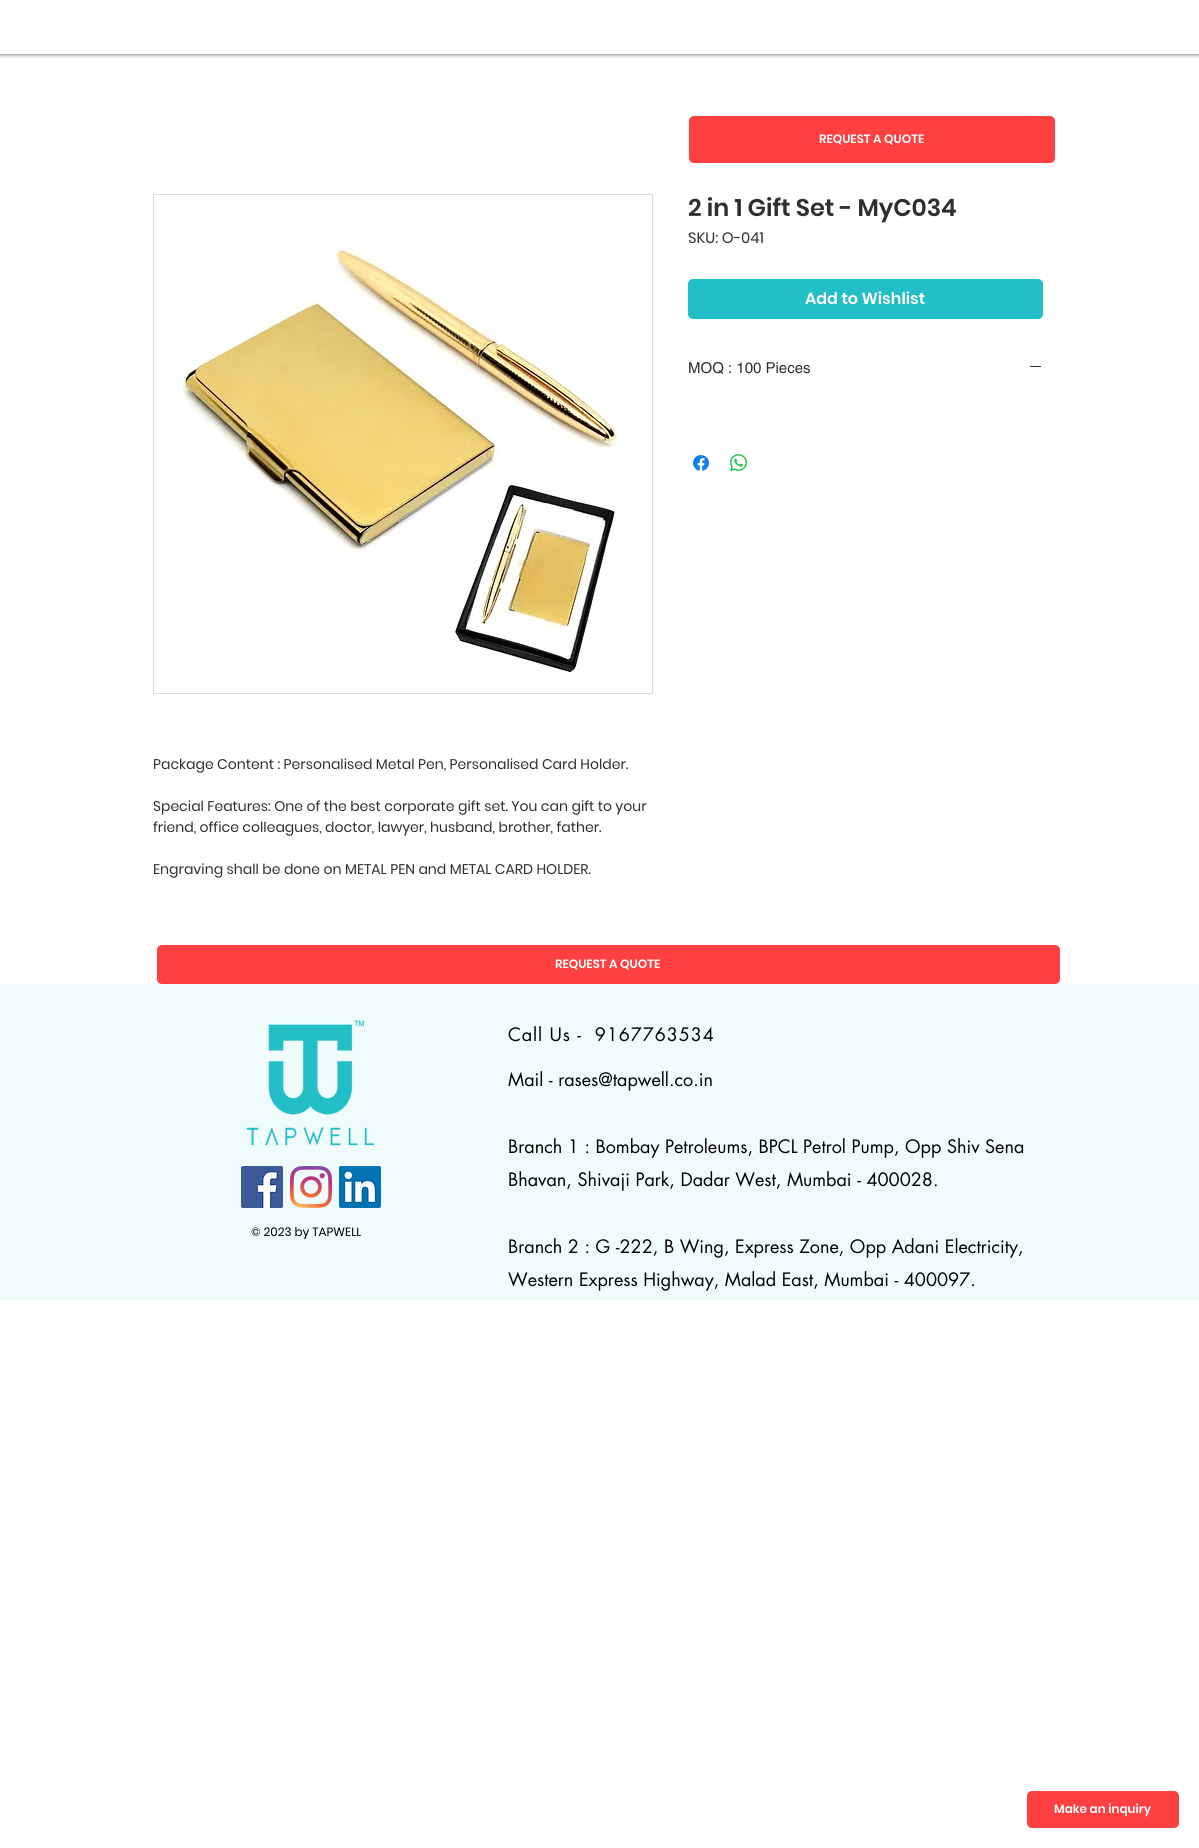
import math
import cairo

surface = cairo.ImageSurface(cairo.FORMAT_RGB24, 1199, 1848)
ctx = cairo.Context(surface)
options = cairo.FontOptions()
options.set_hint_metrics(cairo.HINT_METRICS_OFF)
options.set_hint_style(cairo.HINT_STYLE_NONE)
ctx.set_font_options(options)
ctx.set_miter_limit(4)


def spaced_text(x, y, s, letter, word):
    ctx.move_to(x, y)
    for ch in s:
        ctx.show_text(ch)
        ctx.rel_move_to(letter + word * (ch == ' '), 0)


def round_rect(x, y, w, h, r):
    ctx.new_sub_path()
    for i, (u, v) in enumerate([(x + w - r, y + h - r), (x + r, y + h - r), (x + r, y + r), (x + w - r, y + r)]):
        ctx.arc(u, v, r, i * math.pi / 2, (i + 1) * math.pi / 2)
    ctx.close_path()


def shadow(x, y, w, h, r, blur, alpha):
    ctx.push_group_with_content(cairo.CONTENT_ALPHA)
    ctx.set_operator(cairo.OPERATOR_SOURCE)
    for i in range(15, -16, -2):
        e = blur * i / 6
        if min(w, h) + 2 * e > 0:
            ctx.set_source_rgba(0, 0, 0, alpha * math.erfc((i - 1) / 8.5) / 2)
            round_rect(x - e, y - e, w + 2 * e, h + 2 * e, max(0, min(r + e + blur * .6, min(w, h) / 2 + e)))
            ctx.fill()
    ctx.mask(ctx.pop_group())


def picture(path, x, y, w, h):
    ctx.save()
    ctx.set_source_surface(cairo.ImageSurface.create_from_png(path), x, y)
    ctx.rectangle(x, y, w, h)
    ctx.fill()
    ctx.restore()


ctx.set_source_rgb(1, 1, 1)
ctx.paint()
ctx.set_source_rgb(0, 0, 0)
shadow(0, 0, 1199, 54, 0, 2.5, 0.7)
ctx.set_source_rgb(1, 1, 1)
ctx.rectangle(0, 0, 1199, 54)
ctx.fill()
ctx.set_source_rgb(1, 0.251, 0.251)
round_rect(689, 116, 366, 47, 5)
ctx.fill()
ctx.select_font_face("Poppins SemiBold")
ctx.set_font_size(12)
ctx.set_source_rgb(1, 1, 1)
ctx.move_to(819, 143)
ctx.show_text("REQUEST A QUOTE")
ctx.set_font_size(24)
ctx.set_source_rgb(0.184, 0.184, 0.188)
ctx.move_to(688, 216)
ctx.show_text("2 in 1 Gift Set - MyC034")
ctx.select_font_face("Poppins")
ctx.set_font_size(15)
ctx.move_to(688, 243)
ctx.show_text("SKU: O-041")
ctx.set_source_rgb(0.137, 0.749, 0.784)
round_rect(688, 279, 355, 40, 5)
ctx.fill()
ctx.select_font_face("Poppins SemiBold")
ctx.set_font_size(16)
ctx.set_source_rgb(1, 1, 1)
ctx.move_to(805, 304)
ctx.show_text("Add to Wishlist")
ctx.select_font_face("helvetica")
ctx.set_font_size(15)
ctx.set_source_rgb(0.184, 0.184, 0.188)
ctx.move_to(688, 373)
ctx.show_text("MOQ : 100 Pieces")
ctx.rectangle(1030, 366, 11, 1)
ctx.fill()
picture("img1.png", 693, 455, 16, 16)
picture("img2.png", 730, 454, 17, 17)
ctx.rectangle(153.5, 194.5, 499, 499)
ctx.set_source_rgb(0.859, 0.859, 0.859)
ctx.set_line_width(1)
ctx.stroke()
picture("img3.png", 182, 249, 437, 425)
ctx.select_font_face("Poppins")
ctx.set_font_size(14)
ctx.set_source_rgb(0.184, 0.184, 0.188)
ctx.move_to(153, 769)
ctx.show_text("Package Content : Personalised Metal Pen, Personalised Card Holder.")
ctx.move_to(153, 811)
ctx.show_text("Special Features: One of the best corporate gift set. You can gift to your")
ctx.move_to(153, 832)
ctx.show_text("friend, office colleagues, doctor, lawyer, husband, brother, father.")
ctx.move_to(153, 874)
ctx.show_text("Engraving shall be done on METAL PEN and METAL CARD HOLDER.")
ctx.set_source_rgb(1, 0.251, 0.251)
round_rect(157, 945, 903, 39, 5)
ctx.fill()
ctx.select_font_face("Poppins SemiBold")
ctx.set_font_size(12)
ctx.set_source_rgb(1, 1, 1)
ctx.move_to(555, 968)
ctx.show_text("REQUEST A QUOTE")
ctx.set_source_rgb(0.941, 0.988, 0.988)
ctx.rectangle(0, 984, 1199, 316)
ctx.fill()
picture("img4.png", 246, 1020, 129, 126)
ctx.select_font_face("futura")
ctx.set_font_size(18)
ctx.set_source_rgb(0, 0, 0)
spaced_text(508, 1041, "Call Us -  9167763534", 0.9, 0)
ctx.move_to(508, 1086)
ctx.show_text("Mail - rases@tapwell.co.in")
ctx.move_to(508, 1153)
ctx.show_text("Branch 1 : Bombay Petroleums, BPCL Petrol Pump, Opp Shiv Sena")
ctx.move_to(508, 1186)
ctx.show_text("Bhavan, Shivaji Park, Dadar West, Mumbai - 400028.")
ctx.move_to(508, 1253)
ctx.show_text("Branch 2 : G -222, B Wing, Express Zone, Opp Adani Electricity,")
ctx.move_to(508, 1286)
ctx.show_text("Western Express Highway, Malad East, Mumbai - 400097.")
picture("img5.png", 241, 1166, 42, 42)
picture("img6.png", 290, 1166, 42, 42)
picture("img7.png", 339, 1166, 42, 42)
ctx.select_font_face("Poppins")
ctx.set_font_size(12)
ctx.move_to(251, 1236)
ctx.show_text("© 2023 by TAPWELL")
ctx.set_source_rgb(1, 0.251, 0.251)
round_rect(1027, 1791, 152, 37, 5)
ctx.fill()
ctx.select_font_face("Poppins SemiBold")
ctx.set_source_rgb(1, 1, 1)
ctx.move_to(1054, 1813)
ctx.show_text("Make an inquiry")
surface.write_to_png("page.png")
